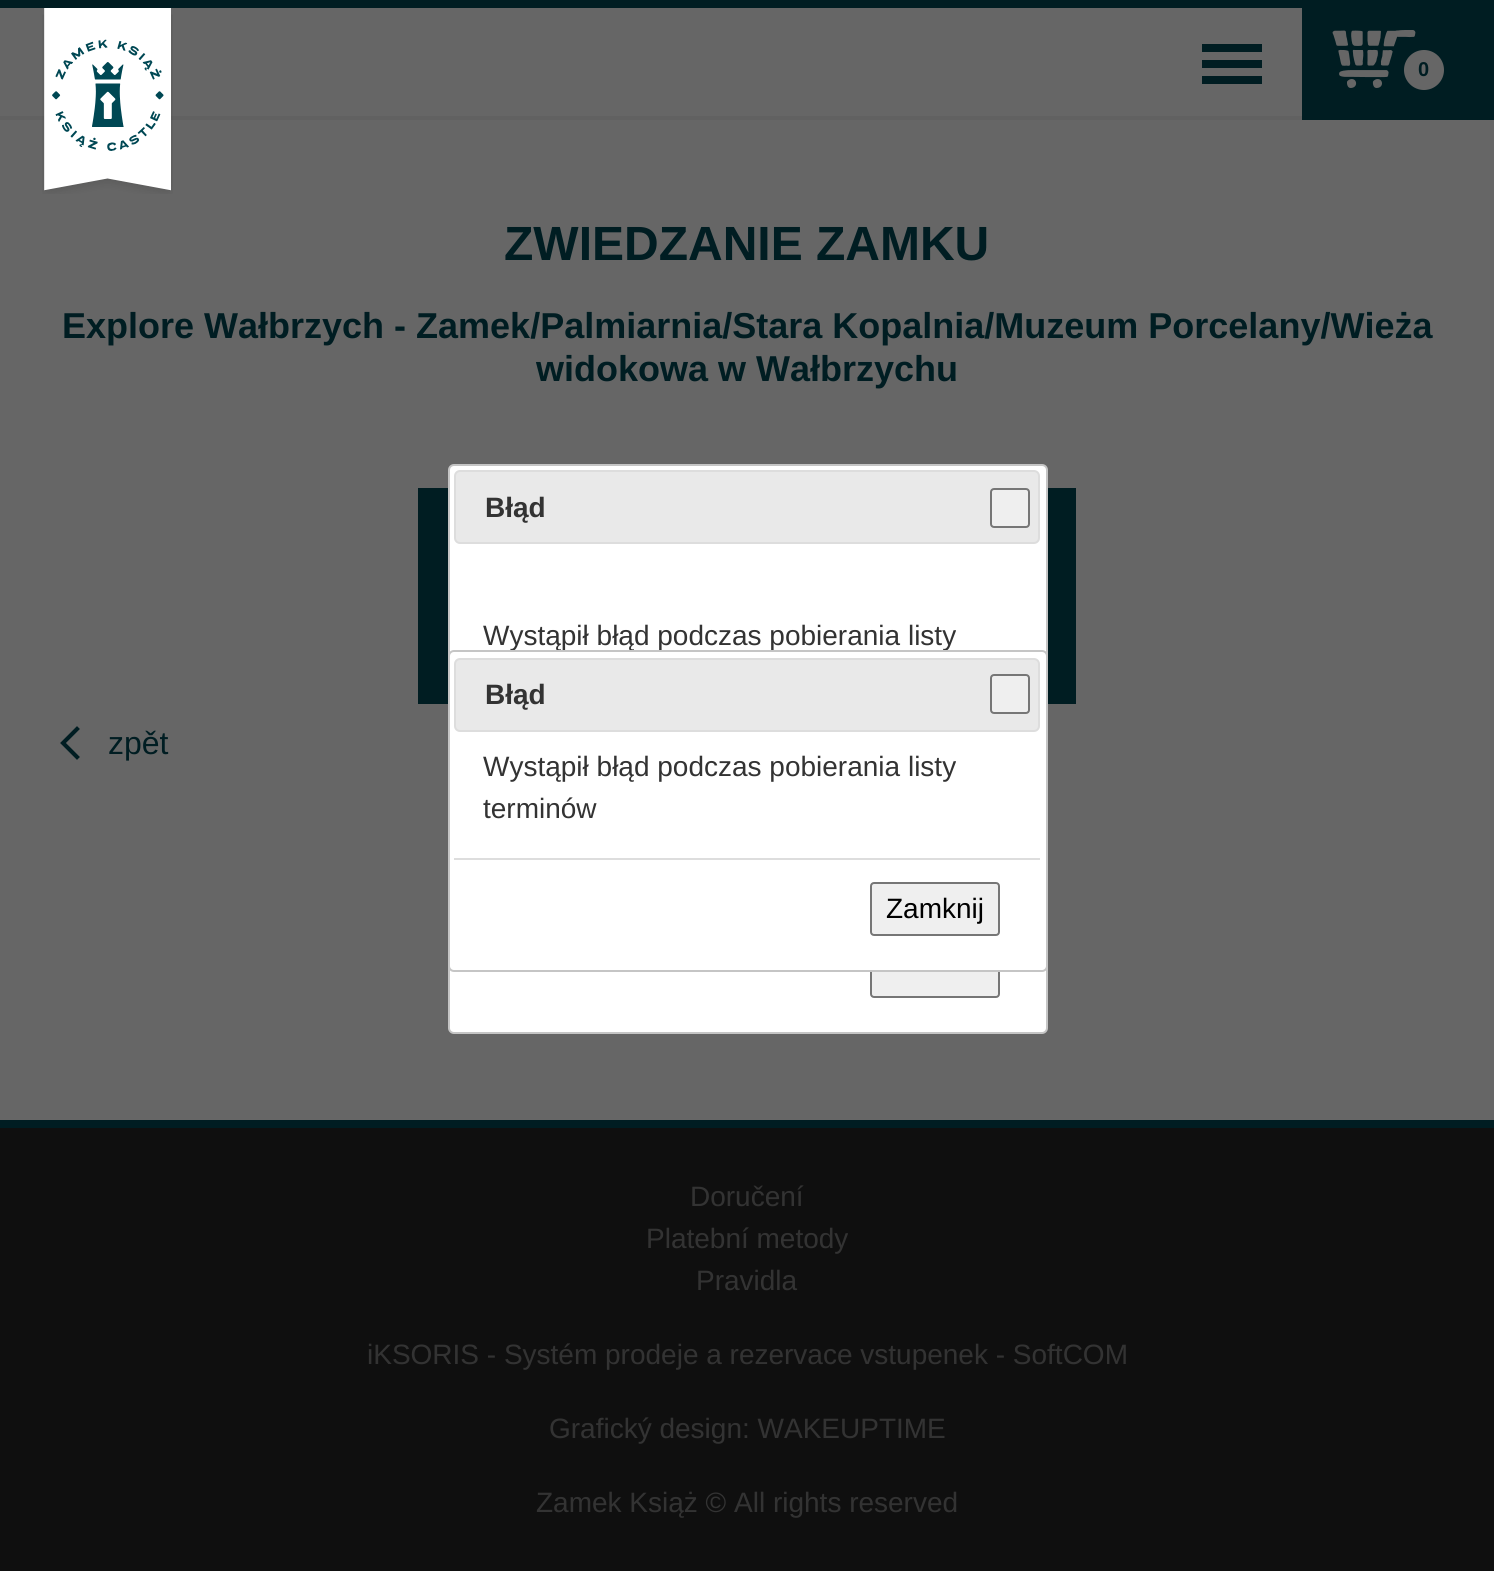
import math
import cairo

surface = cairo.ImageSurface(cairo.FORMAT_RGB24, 1494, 1571)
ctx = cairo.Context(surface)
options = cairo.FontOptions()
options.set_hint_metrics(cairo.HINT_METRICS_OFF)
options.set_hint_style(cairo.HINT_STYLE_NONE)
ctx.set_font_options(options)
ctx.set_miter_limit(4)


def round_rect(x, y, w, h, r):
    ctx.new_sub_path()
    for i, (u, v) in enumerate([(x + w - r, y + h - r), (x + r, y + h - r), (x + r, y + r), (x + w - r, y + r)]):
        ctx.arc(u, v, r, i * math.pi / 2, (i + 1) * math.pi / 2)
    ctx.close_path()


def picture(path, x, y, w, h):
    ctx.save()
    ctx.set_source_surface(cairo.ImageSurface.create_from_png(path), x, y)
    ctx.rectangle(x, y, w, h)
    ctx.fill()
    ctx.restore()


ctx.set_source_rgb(0.4, 0.4, 0.4)
ctx.paint()
ctx.set_source_rgb(0, 0.114, 0.133)
ctx.rectangle(0, 0, 1302, 8)
ctx.fill()
ctx.set_source_rgb(0.38, 0.38, 0.38)
ctx.rectangle(0, 116, 1302, 4)
ctx.fill()
picture("img1.png", 42, 8, 131, 186)
ctx.set_source_rgb(0, 0.114, 0.133)
ctx.rectangle(1202, 44, 60, 8)
ctx.fill()
ctx.rectangle(1202, 60, 60, 8)
ctx.fill()
ctx.rectangle(1202, 76, 60, 8)
ctx.fill()
ctx.rectangle(1302, 0, 192, 120)
ctx.fill()
picture("img2.png", 1332, 30, 84, 58)
ctx.set_source_rgb(0.4, 0.4, 0.4)
ctx.arc(1424, 70, 20, 0, 2 * math.pi)
ctx.fill()
ctx.select_font_face("Liberation Sans", cairo.FONT_SLANT_NORMAL, cairo.FONT_WEIGHT_BOLD)
ctx.set_font_size(20)
ctx.set_source_rgb(0, 0.114, 0.133)
ctx.move_to(1418, 76)
ctx.show_text("0")
ctx.set_font_size(48)
ctx.move_to(504, 260)
ctx.show_text("ZWIEDZANIE ZAMKU")
ctx.set_font_size(36)
ctx.move_to(62, 338)
ctx.show_text("Explore Wałbrzych - Zamek/Palmiarnia/Stara Kopalnia/Muzeum Porcelany/Wieża")
ctx.move_to(536, 381)
ctx.show_text("widokowa w Wałbrzychu")
ctx.rectangle(418, 488, 658, 216)
ctx.fill()
ctx.new_path()
ctx.move_to(77, 757)
ctx.line_to(63, 743)
ctx.line_to(77, 729)
ctx.set_line_width(4.1)
ctx.set_line_cap(cairo.LINE_CAP_SQUARE)
ctx.stroke()
ctx.select_font_face("Liberation Sans")
ctx.set_font_size(32)
ctx.move_to(108, 754)
ctx.show_text("zpět")
ctx.set_source_rgb(1, 1, 1)
round_rect(449, 615, 598, 418, 5)
ctx.fill_preserve()
ctx.set_source_rgb(0.773, 0.773, 0.773)
ctx.set_line_width(2)
ctx.set_line_cap(cairo.LINE_CAP_BUTT)
ctx.stroke()
ctx.set_source_rgb(1, 1, 1)
round_rect(449, 465, 598, 416, 5)
ctx.fill_preserve()
ctx.set_source_rgb(0.773, 0.773, 0.773)
ctx.stroke()
ctx.set_source_rgb(0.914, 0.914, 0.914)
round_rect(455, 471, 584, 72, 5)
ctx.fill_preserve()
ctx.set_source_rgb(0.867, 0.867, 0.867)
ctx.stroke()
ctx.select_font_face("Liberation Sans", cairo.FONT_SLANT_NORMAL, cairo.FONT_WEIGHT_BOLD)
ctx.set_font_size(28)
ctx.set_source_rgb(0.2, 0.2, 0.2)
ctx.move_to(485, 517)
ctx.show_text("Błąd")
ctx.set_source_rgb(0.937, 0.937, 0.937)
round_rect(991, 489, 38, 38, 3)
ctx.fill_preserve()
ctx.set_source_rgb(0.463, 0.463, 0.463)
ctx.stroke()
ctx.select_font_face("Liberation Sans")
ctx.set_source_rgb(0.2, 0.2, 0.2)
ctx.move_to(483, 645)
ctx.show_text("Wystąpił błąd podczas pobierania listy")
ctx.set_source_rgb(0.937, 0.937, 0.937)
round_rect(871, 945, 128, 52, 3)
ctx.fill_preserve()
ctx.set_source_rgb(0.463, 0.463, 0.463)
ctx.stroke()
ctx.set_source_rgb(1, 1, 1)
round_rect(449, 651, 598, 320, 5)
ctx.fill_preserve()
ctx.set_source_rgb(0.773, 0.773, 0.773)
ctx.stroke()
ctx.set_source_rgb(0.914, 0.914, 0.914)
round_rect(455, 659, 584, 72, 5)
ctx.fill_preserve()
ctx.set_source_rgb(0.867, 0.867, 0.867)
ctx.stroke()
ctx.select_font_face("Liberation Sans", cairo.FONT_SLANT_NORMAL, cairo.FONT_WEIGHT_BOLD)
ctx.set_source_rgb(0.2, 0.2, 0.2)
ctx.move_to(485, 704)
ctx.show_text("Błąd")
ctx.set_source_rgb(0.937, 0.937, 0.937)
round_rect(991, 675, 38, 38, 3)
ctx.fill_preserve()
ctx.set_source_rgb(0.463, 0.463, 0.463)
ctx.stroke()
ctx.select_font_face("Liberation Sans")
ctx.set_source_rgb(0.2, 0.2, 0.2)
ctx.move_to(483, 776)
ctx.show_text("Wystąpił błąd podczas pobierania listy")
ctx.move_to(483, 818)
ctx.show_text("terminów")
ctx.set_source_rgb(0.867, 0.867, 0.867)
ctx.rectangle(454, 858, 586, 2)
ctx.fill()
ctx.set_source_rgb(0.937, 0.937, 0.937)
round_rect(871, 883, 128, 52, 3)
ctx.fill_preserve()
ctx.set_source_rgb(0.463, 0.463, 0.463)
ctx.stroke()
ctx.set_source_rgb(0, 0, 0)
ctx.move_to(886, 918)
ctx.show_text("Zamknij")
ctx.set_source_rgb(0.059, 0.059, 0.059)
ctx.rectangle(0, 1128, 1494, 443)
ctx.fill()
ctx.set_source_rgb(0, 0.114, 0.133)
ctx.rectangle(0, 1120, 1494, 8)
ctx.fill()
ctx.set_source_rgb(0.2, 0.2, 0.2)
ctx.move_to(690, 1206)
ctx.show_text("Doručení")
ctx.move_to(646, 1248)
ctx.show_text("Platební metody")
ctx.move_to(696, 1290)
ctx.show_text("Pravidla")
ctx.move_to(367, 1364)
ctx.show_text("iKSORIS - Systém prodeje a rezervace vstupenek - SoftCOM")
ctx.move_to(549, 1438)
ctx.show_text("Grafický design: WAKEUPTIME")
ctx.move_to(536, 1512)
ctx.show_text("Zamek Książ © All rights reserved")
surface.write_to_png("page.png")
